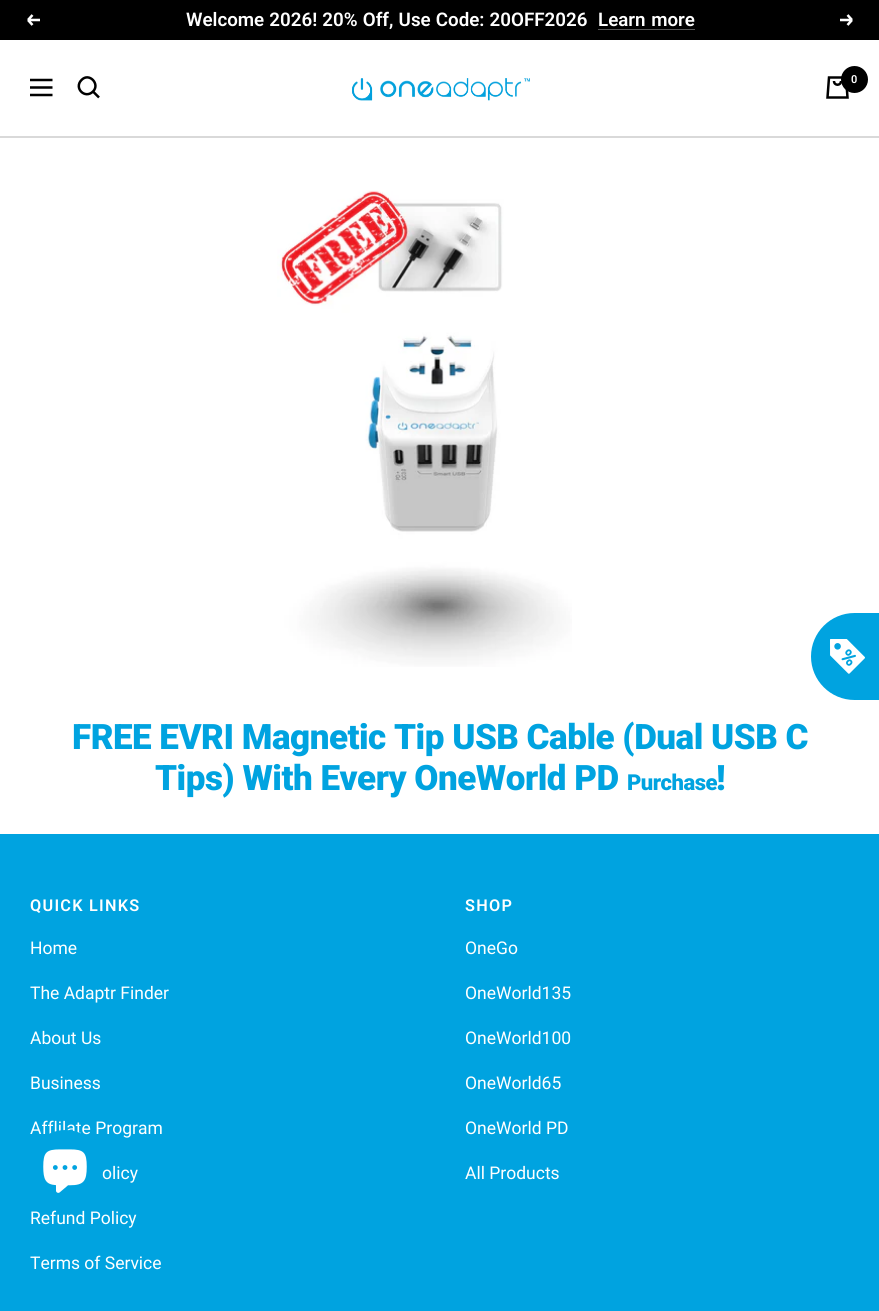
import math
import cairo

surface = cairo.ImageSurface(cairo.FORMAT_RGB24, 879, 1311)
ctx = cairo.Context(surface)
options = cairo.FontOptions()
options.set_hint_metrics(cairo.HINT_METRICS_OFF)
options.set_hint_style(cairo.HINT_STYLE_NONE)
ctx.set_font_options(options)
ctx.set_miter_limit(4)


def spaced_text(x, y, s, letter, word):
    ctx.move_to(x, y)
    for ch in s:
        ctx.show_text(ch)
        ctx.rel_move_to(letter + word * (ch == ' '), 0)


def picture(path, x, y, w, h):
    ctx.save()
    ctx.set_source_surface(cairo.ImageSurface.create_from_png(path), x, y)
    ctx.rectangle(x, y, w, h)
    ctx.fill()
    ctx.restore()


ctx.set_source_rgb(1, 1, 1)
ctx.paint()
ctx.set_source_rgb(0, 0, 0)
ctx.rectangle(0, 0, 879, 40)
ctx.fill()
ctx.new_path()
ctx.move_to(40, 20)
ctx.line_to(28, 20)
ctx.move_to(28, 20)
ctx.line_to(32.5, 25)
ctx.move_to(28, 20)
ctx.line_to(32.5, 15)
ctx.set_source_rgb(1, 1, 1)
ctx.set_line_width(2.5)
ctx.stroke()
ctx.select_font_face("Roboto SemiBold")
ctx.set_font_size(18.75)
spaced_text(186, 26, "Welcome 2026! 20% Off, Use Code: 20OFF2026", 0, 0.5)
spaced_text(598, 26, "Learn more", 0, 1)
ctx.set_source_rgb(0.349, 0.349, 0.349)
ctx.rectangle(598, 29, 97, 1)
ctx.fill()
ctx.new_path()
ctx.move_to(840, 20)
ctx.line_to(852, 20)
ctx.move_to(852, 20)
ctx.line_to(847.5, 25)
ctx.move_to(852, 20)
ctx.line_to(847.5, 15)
ctx.set_source_rgb(1, 1, 1)
ctx.stroke()
ctx.set_source_rgb(0.851, 0.851, 0.851)
ctx.rectangle(0, 136, 879, 2)
ctx.fill()
ctx.new_path()
ctx.move_to(30, 80)
ctx.line_to(52.5, 80)
ctx.move_to(30, 95)
ctx.line_to(52.5, 95)
ctx.close_path()
ctx.move_to(30, 87.5)
ctx.line_to(52.5, 87.5)
ctx.close_path()
ctx.set_source_rgb(0, 0, 0)
ctx.stroke()
ctx.new_path()
ctx.move_to(93, 91.5)
ctx.curve_to(100.5, 84, 89, 72, 81.5, 80)
ctx.curve_to(73.5, 88, 85, 99.5, 93, 91.5)
ctx.close_path()
ctx.move_to(93, 91.5)
ctx.line_to(99, 97.5)
ctx.stroke()
picture("img1.png", 352, 78, 178, 23)
ctx.new_path()
ctx.move_to(829, 77.5)
ctx.line_to(846, 77.5)
ctx.line_to(847.5, 97.5)
ctx.line_to(827.5, 97.5)
ctx.close_path()
ctx.move_to(834, 81)
ctx.curve_to(834, 86, 841, 86, 841, 81)
ctx.stroke()
ctx.arc(854.5, 79.5, 13.5, 0, 2 * math.pi)
ctx.fill()
ctx.set_font_size(11)
ctx.set_source_rgb(1, 1, 1)
ctx.move_to(851, 83)
ctx.show_text("0")
ctx.set_source_rgb(0, 0.639, 0.878)
ctx.new_path()
ctx.move_to(854.5, 613)
ctx.line_to(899, 613)
ctx.line_to(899, 700)
ctx.line_to(854.5, 700)
ctx.curve_to(830.5, 700, 811, 680.5, 811, 656.5)
ctx.curve_to(811, 632.5, 830.5, 613, 854.5, 613)
ctx.close_path()
ctx.fill()
picture("img2.png", 830, 639, 35, 35)
picture("img3.png", 277, 190, 295, 477)
ctx.select_font_face("Roboto Black")
ctx.set_font_size(35)
spaced_text(72, 749, "FREE EVRI Magnetic Tip USB Cable (Dual USB C", -0.5, 0)
spaced_text(155, 790, "Tips) With Every OneWorld PD", -0.5, 0)
ctx.set_font_size(22)
spaced_text(627, 790, "Purchase", -0.5, 0)
ctx.set_font_size(35)
spaced_text(716, 790, "!", -0.5, 0)
ctx.rectangle(0, 834, 879, 477)
ctx.fill()
ctx.select_font_face("Roboto SemiBold")
ctx.set_font_size(16.25)
ctx.set_source_rgb(1, 1, 1)
spaced_text(30, 911, "QUICK LINKS", 1.25, 0)
ctx.select_font_face("Roboto")
ctx.set_font_size(17.5)
ctx.move_to(30, 954)
ctx.show_text("Home")
ctx.move_to(30, 999)
ctx.show_text("The Adaptr Finder")
ctx.move_to(30, 1044)
ctx.show_text("About Us")
ctx.move_to(30, 1089)
ctx.show_text("Business")
ctx.move_to(30, 1134)
ctx.show_text("Afflilate Program")
ctx.move_to(102, 1179)
ctx.show_text("olicy")
ctx.move_to(30, 1224)
ctx.show_text("Refund Policy")
ctx.move_to(30, 1269)
ctx.show_text("Terms of Service")
ctx.select_font_face("Roboto SemiBold")
ctx.set_font_size(16.25)
spaced_text(465, 911, "SHOP", 1.25, 0)
ctx.select_font_face("Roboto")
ctx.set_font_size(17.5)
ctx.move_to(465, 954)
ctx.show_text("OneGo")
ctx.move_to(465, 999)
ctx.show_text("OneWorld135")
ctx.move_to(465, 1044)
ctx.show_text("OneWorld100")
ctx.move_to(465, 1089)
ctx.show_text("OneWorld65")
ctx.move_to(465, 1134)
ctx.show_text("OneWorld PD")
ctx.move_to(465, 1179)
ctx.show_text("All Products")
ctx.set_source_rgb(0, 0.639, 0.878)
ctx.new_path()
ctx.arc(65.5, 1167.5, 37.5, 0, 2 * math.pi)
ctx.fill()
picture("img4.png", 43, 1149, 44, 44)
surface.write_to_png("page.png")
